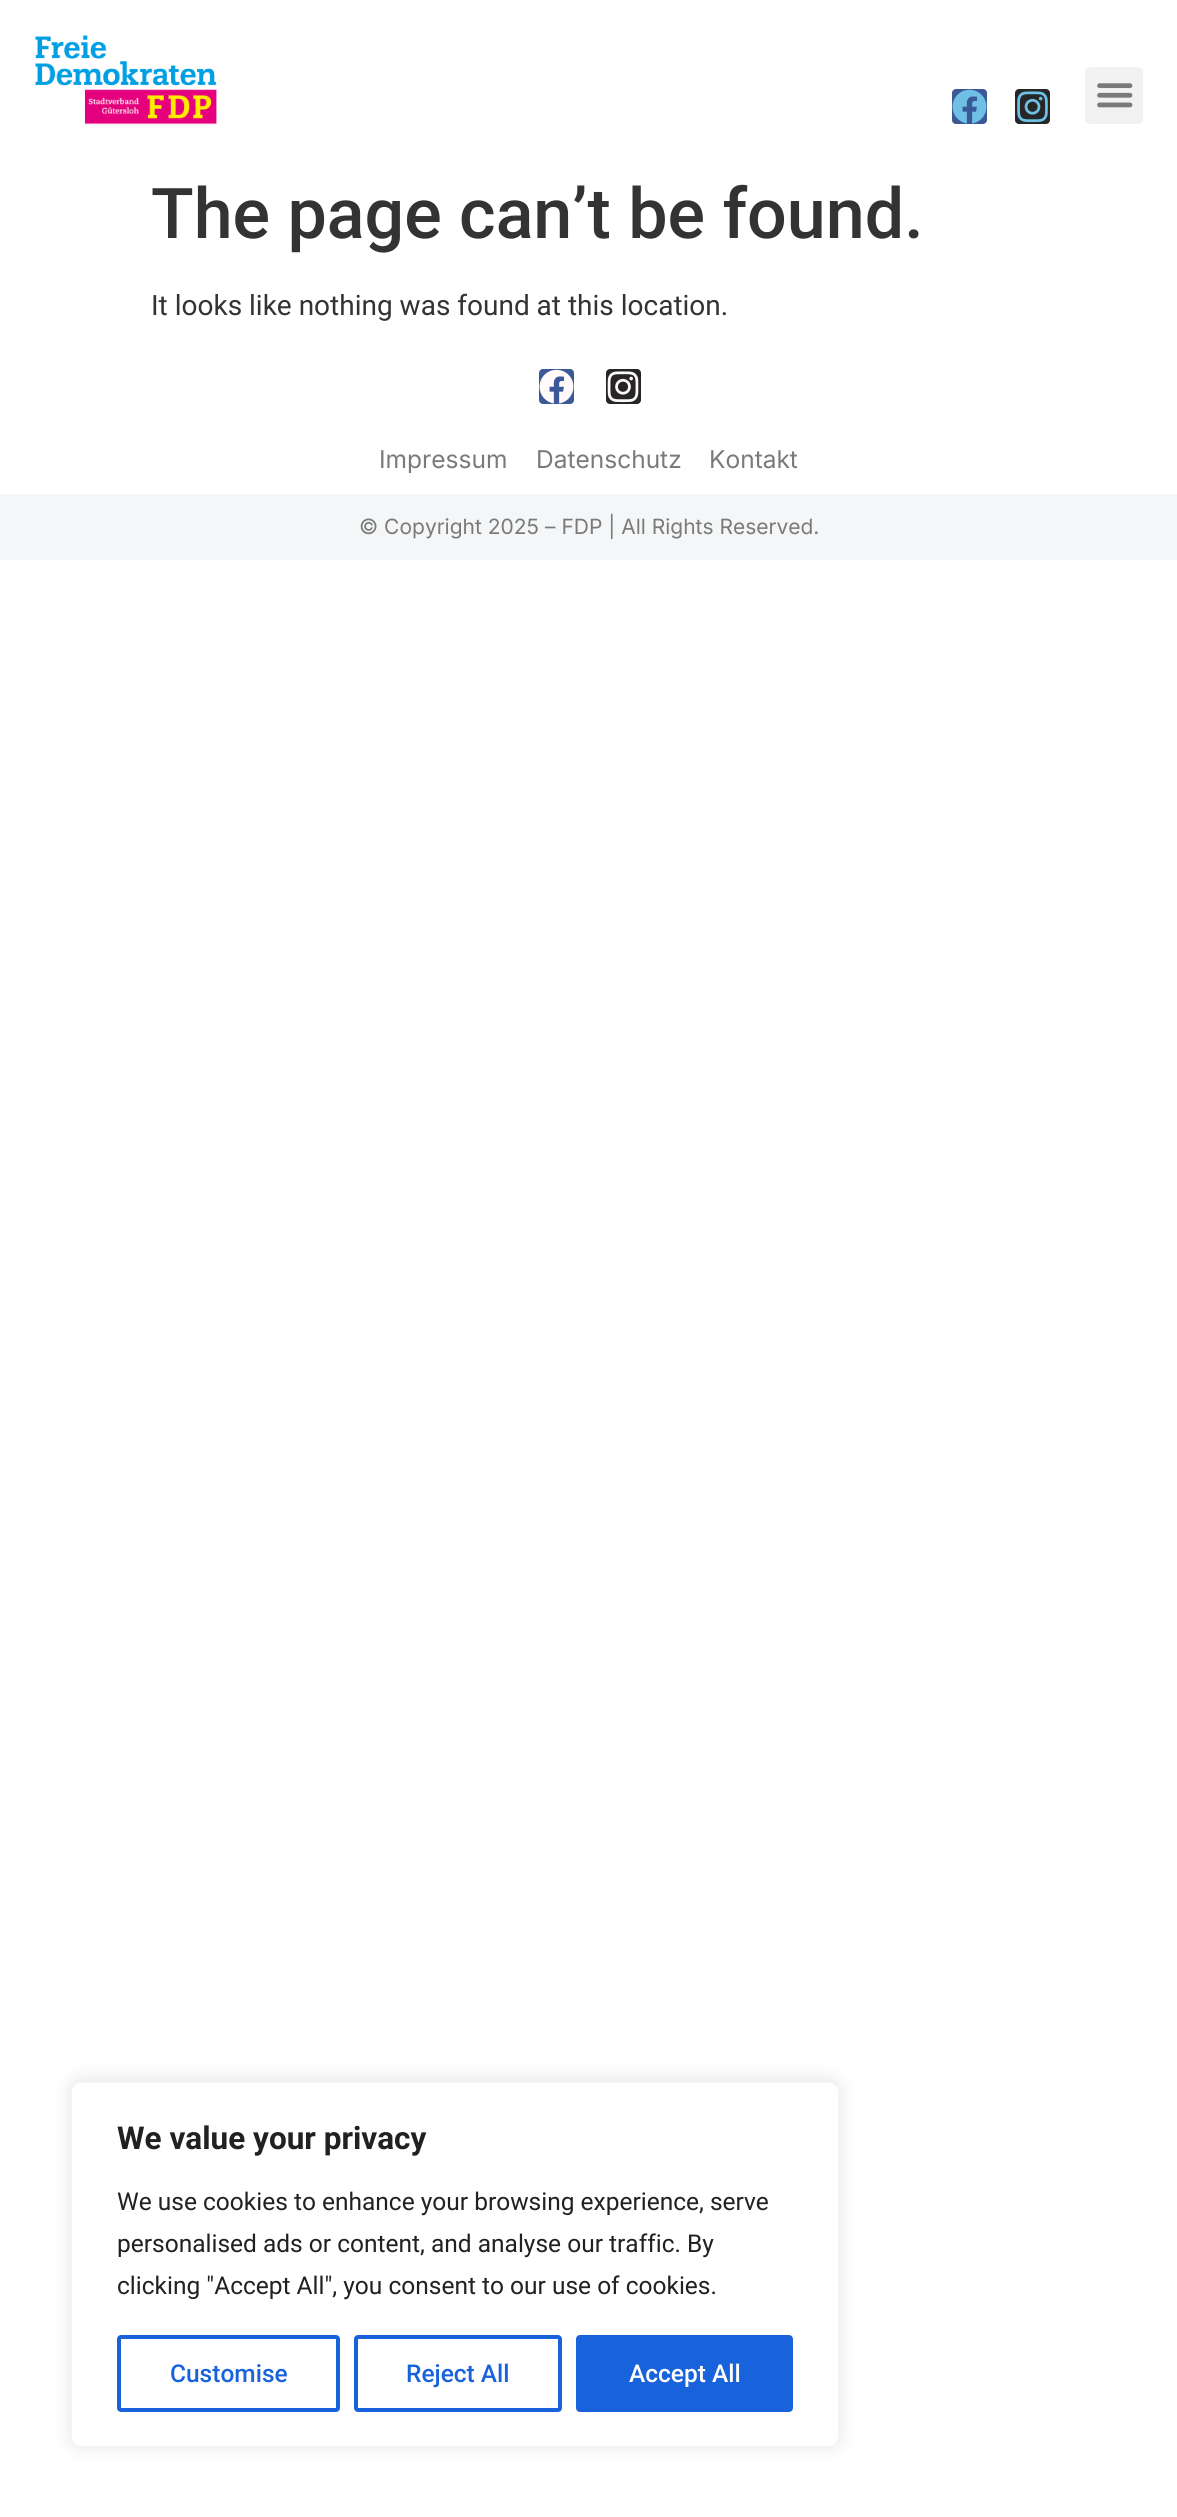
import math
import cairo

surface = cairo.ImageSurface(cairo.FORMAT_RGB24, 1177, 2517)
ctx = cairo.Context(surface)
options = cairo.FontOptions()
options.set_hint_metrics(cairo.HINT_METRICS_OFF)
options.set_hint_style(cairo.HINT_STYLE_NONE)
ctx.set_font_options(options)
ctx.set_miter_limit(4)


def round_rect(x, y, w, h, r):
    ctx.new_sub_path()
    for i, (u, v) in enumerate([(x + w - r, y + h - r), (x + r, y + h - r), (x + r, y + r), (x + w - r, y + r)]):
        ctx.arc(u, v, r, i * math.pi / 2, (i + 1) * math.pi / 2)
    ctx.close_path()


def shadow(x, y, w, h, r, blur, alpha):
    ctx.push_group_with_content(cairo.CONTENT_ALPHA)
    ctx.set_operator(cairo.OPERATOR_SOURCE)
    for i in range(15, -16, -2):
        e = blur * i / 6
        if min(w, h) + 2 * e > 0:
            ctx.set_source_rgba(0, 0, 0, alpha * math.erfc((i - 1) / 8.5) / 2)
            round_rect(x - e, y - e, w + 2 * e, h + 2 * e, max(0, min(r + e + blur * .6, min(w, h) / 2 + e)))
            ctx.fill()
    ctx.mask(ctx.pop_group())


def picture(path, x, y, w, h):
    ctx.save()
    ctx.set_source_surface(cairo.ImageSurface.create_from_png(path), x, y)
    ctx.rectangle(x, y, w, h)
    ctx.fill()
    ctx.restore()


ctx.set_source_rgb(1, 1, 1)
ctx.paint()
picture("img1.png", 35, 35, 182, 90)
ctx.set_source_rgb(0.231, 0.349, 0.596)
round_rect(952, 89, 35, 35, 4)
ctx.fill()
picture("img2.png", 952, 89, 35, 35)
ctx.set_source_rgb(0.149, 0.149, 0.149)
round_rect(1015, 89, 35, 35, 4)
ctx.fill()
picture("img3.png", 1017, 91, 31, 32)
ctx.set_source_rgb(0.949, 0.949, 0.949)
round_rect(1085, 67, 58, 57, 5)
ctx.fill()
picture("img4.png", 1097, 83, 36, 25)
ctx.select_font_face("Roboto Medium")
ctx.set_font_size(70)
ctx.set_source_rgb(0.2, 0.2, 0.2)
ctx.move_to(151, 238)
ctx.show_text("The page can’t be found.")
ctx.select_font_face("Roboto")
ctx.set_font_size(28)
ctx.move_to(151, 315)
ctx.show_text("It looks like nothing was found at this location.")
ctx.set_source_rgb(0.231, 0.349, 0.596)
round_rect(539, 369, 35, 35, 4)
ctx.fill()
picture("img5.png", 539, 369, 35, 35)
ctx.set_source_rgb(0.149, 0.149, 0.149)
round_rect(606, 369, 35, 35, 4)
ctx.fill()
picture("img6.png", 607, 371, 32, 32)
ctx.select_font_face("Inter")
ctx.set_font_size(24.5)
ctx.set_source_rgb(0.478, 0.478, 0.478)
ctx.move_to(379, 468)
ctx.show_text("Impressum")
ctx.move_to(536, 468)
ctx.show_text("Datenschutz")
ctx.move_to(709, 468)
ctx.show_text("Kontakt")
ctx.set_source_rgb(0.957, 0.961, 0.965)
ctx.rectangle(0, 494, 1177, 66)
ctx.fill()
ctx.set_font_size(21)
ctx.set_source_rgb(0.478, 0.478, 0.478)
ctx.move_to(359, 534)
ctx.show_text("© Copyright 2025 – FDP | All Rights Reserved.")
ctx.set_source_rgb(0.675, 0.671, 0.671)
shadow(70, 2079, 770, 368, 11, 9, 0.3)
ctx.set_source_rgb(1, 1, 1)
round_rect(71, 2082, 768, 365, 10)
ctx.fill_preserve()
ctx.set_source_rgb(0.957, 0.957, 0.957)
ctx.stroke()
ctx.select_font_face("Roboto", cairo.FONT_SLANT_NORMAL, cairo.FONT_WEIGHT_BOLD)
ctx.set_font_size(31.5)
ctx.set_source_rgb(0.129, 0.129, 0.129)
ctx.move_to(117, 2149)
ctx.show_text("We value your privacy")
ctx.select_font_face("Roboto")
ctx.set_font_size(24.5)
ctx.move_to(117, 2210)
ctx.show_text("We use cookies to enhance your browsing experience, serve")
ctx.move_to(117, 2252)
ctx.show_text("personalised ads or content, and analyse our traffic. By")
ctx.move_to(117, 2294)
ctx.show_text("clicking \"Accept All\", you consent to our use of cookies.")
round_rect(119, 2337, 219, 73, 2)
ctx.set_source_rgb(0.094, 0.388, 0.863)
ctx.set_line_width(4)
ctx.stroke()
ctx.select_font_face("Roboto Medium")
ctx.move_to(170, 2382)
ctx.show_text("Customise")
round_rect(356, 2337, 204, 73, 2)
ctx.stroke()
ctx.move_to(406, 2382)
ctx.show_text("Reject All")
round_rect(578, 2337, 213, 73, 2)
ctx.fill_preserve()
ctx.stroke()
ctx.set_source_rgb(1, 1, 1)
ctx.move_to(629, 2382)
ctx.show_text("Accept All")
surface.write_to_png("page.png")
